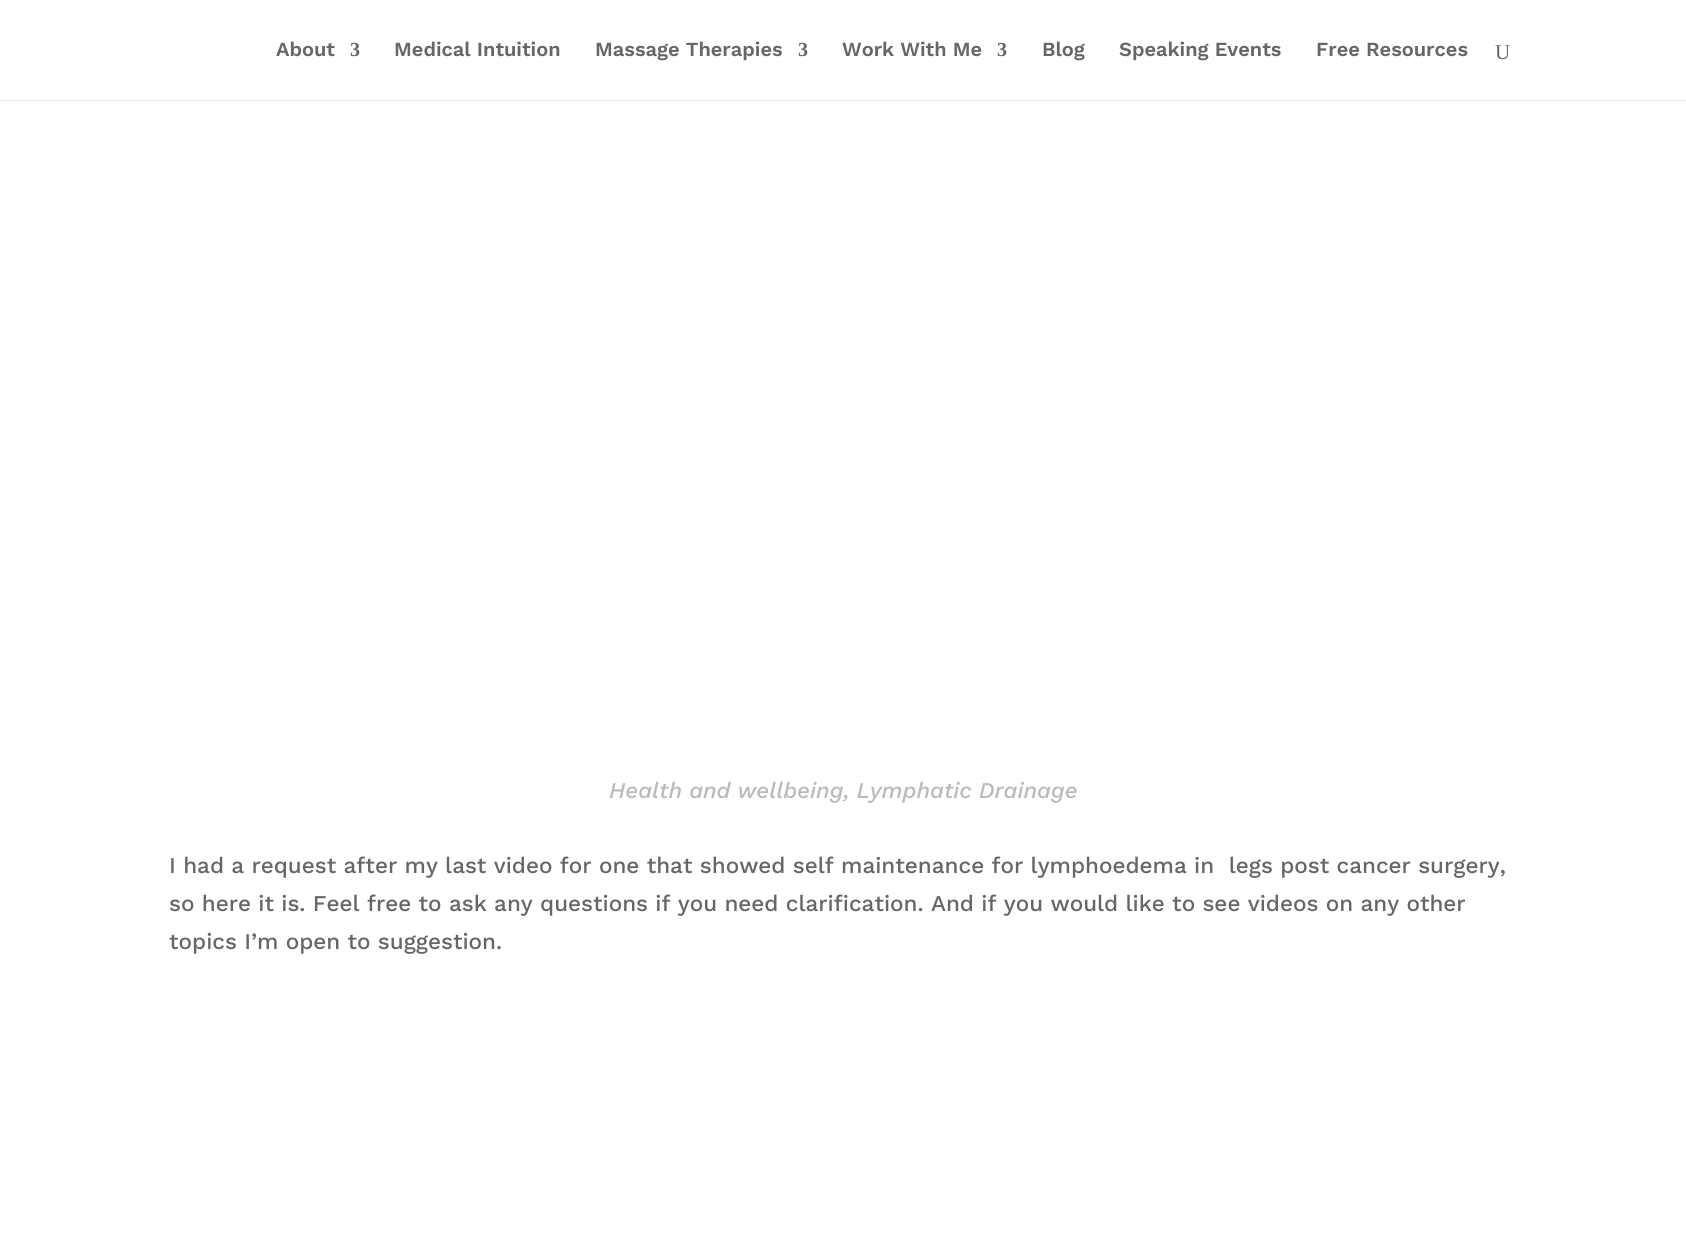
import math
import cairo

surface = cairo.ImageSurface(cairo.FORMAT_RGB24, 1686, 1239)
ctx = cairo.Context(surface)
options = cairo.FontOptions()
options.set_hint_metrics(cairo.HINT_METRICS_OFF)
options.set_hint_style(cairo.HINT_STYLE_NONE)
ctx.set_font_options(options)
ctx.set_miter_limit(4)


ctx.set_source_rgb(1, 1, 1)
ctx.paint()
ctx.set_source_rgb(0.902, 0.902, 0.902)
ctx.rectangle(0, 100, 1686, 1)
ctx.fill()
ctx.select_font_face("Work Sans SemiBold")
ctx.set_font_size(20)
ctx.set_source_rgb(0.4, 0.4, 0.4)
ctx.move_to(276, 56)
ctx.show_text("About")
ctx.select_font_face("Liberation Serif", cairo.FONT_SLANT_NORMAL, cairo.FONT_WEIGHT_BOLD)
ctx.move_to(350, 56)
ctx.show_text("3")
ctx.select_font_face("Work Sans SemiBold")
ctx.move_to(394, 56)
ctx.show_text("Medical Intuition")
ctx.move_to(595, 56)
ctx.show_text("Massage Therapies")
ctx.select_font_face("Liberation Serif", cairo.FONT_SLANT_NORMAL, cairo.FONT_WEIGHT_BOLD)
ctx.move_to(798, 56)
ctx.show_text("3")
ctx.select_font_face("Work Sans SemiBold")
ctx.move_to(842, 56)
ctx.show_text("Work With Me")
ctx.select_font_face("Liberation Serif", cairo.FONT_SLANT_NORMAL, cairo.FONT_WEIGHT_BOLD)
ctx.move_to(997, 56)
ctx.show_text("3")
ctx.select_font_face("Work Sans SemiBold")
ctx.move_to(1042, 56)
ctx.show_text("Blog")
ctx.move_to(1119, 56)
ctx.show_text("Speaking Events")
ctx.move_to(1316, 56)
ctx.show_text("Free Resources")
ctx.select_font_face("Liberation Serif")
ctx.set_font_size(21)
ctx.move_to(1495, 59)
ctx.show_text("U")
ctx.select_font_face("Work Sans Medium", cairo.FONT_SLANT_ITALIC)
ctx.set_font_size(22.5)
ctx.set_source_rgb(0.729, 0.729, 0.729)
ctx.move_to(609, 798)
ctx.show_text("Health and wellbeing, Lymphatic Drainage")
ctx.select_font_face("Work Sans Medium")
ctx.set_source_rgb(0.4, 0.4, 0.4)
ctx.move_to(169, 873)
ctx.show_text("I had a request after my last video for one that showed self maintenance for lymphoedema in  legs post cancer surgery,")
ctx.move_to(169, 911)
ctx.show_text("so here it is. Feel free to ask any questions if you need clarification. And if you would like to see videos on any other")
ctx.move_to(169, 949)
ctx.show_text("topics I’m open to suggestion.")
surface.write_to_png("page.png")
